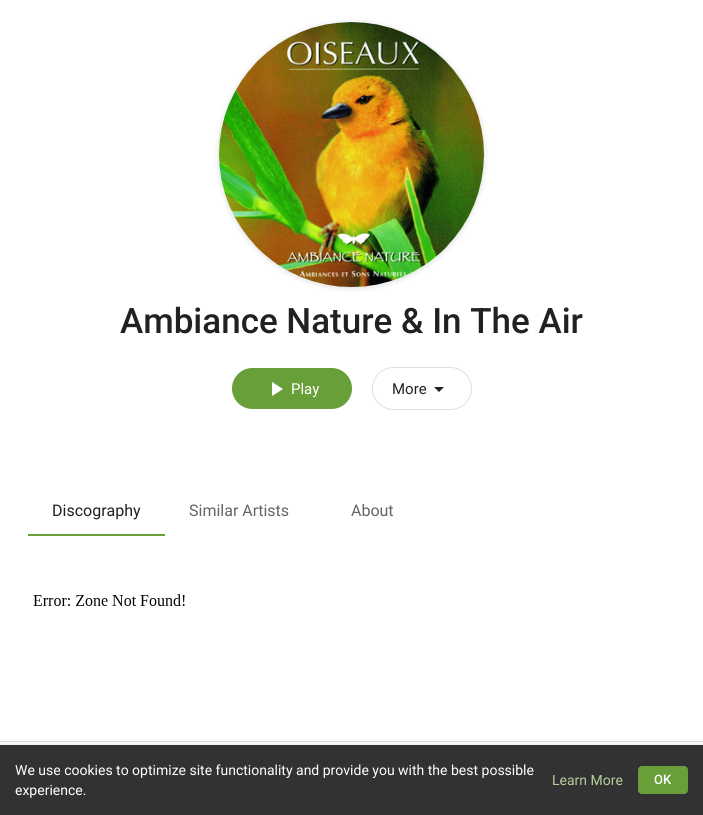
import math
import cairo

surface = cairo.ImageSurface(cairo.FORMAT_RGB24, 703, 815)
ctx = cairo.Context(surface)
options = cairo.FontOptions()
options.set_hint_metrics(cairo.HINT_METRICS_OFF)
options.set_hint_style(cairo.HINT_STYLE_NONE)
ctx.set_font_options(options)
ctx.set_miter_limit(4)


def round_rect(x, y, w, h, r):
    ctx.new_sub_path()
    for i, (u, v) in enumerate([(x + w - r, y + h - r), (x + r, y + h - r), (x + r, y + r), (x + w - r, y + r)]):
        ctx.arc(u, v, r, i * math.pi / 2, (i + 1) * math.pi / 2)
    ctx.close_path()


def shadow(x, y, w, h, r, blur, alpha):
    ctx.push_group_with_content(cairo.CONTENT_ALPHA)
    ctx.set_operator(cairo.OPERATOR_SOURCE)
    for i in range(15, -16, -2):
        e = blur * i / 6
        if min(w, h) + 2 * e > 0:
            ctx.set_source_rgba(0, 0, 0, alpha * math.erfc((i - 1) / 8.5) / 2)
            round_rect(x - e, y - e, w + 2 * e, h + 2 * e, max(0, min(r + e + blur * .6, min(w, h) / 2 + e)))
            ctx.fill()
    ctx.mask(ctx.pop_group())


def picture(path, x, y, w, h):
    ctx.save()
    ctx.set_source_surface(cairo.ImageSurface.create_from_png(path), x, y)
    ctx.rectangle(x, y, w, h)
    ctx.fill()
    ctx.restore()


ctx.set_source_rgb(1, 1, 1)
ctx.paint()
ctx.set_source_rgb(0.098, 0.098, 0.133)
shadow(219, 23, 265, 265, 132.5, 3, 0.16)
ctx.set_source_rgb(1, 1, 1)
ctx.arc(351.5, 154.5, 132.5, 0, 2 * math.pi)
ctx.fill()
picture("img1.png", 219, 22, 265, 265)
ctx.select_font_face("Roboto Medium")
ctx.set_font_size(35)
ctx.set_source_rgb(0.129, 0.129, 0.129)
ctx.move_to(120, 333)
ctx.show_text("Ambiance Nature & In The Air")
ctx.set_source_rgb(0.408, 0.624, 0.22)
round_rect(232, 368, 120, 41, 20.5)
ctx.fill()
ctx.set_source_rgb(1, 1, 1)
ctx.new_path()
ctx.move_to(272, 382)
ctx.line_to(272, 396)
ctx.line_to(283, 389)
ctx.close_path()
ctx.fill()
ctx.select_font_face("Roboto")
ctx.set_font_size(15)
ctx.move_to(291, 394)
ctx.show_text("Play")
round_rect(372.5, 367.5, 99, 42, 21)
ctx.set_source_rgb(0.878, 0.878, 0.878)
ctx.set_line_width(1)
ctx.stroke()
ctx.set_source_rgb(0.129, 0.129, 0.129)
ctx.move_to(392, 394)
ctx.show_text("More")
ctx.new_path()
ctx.move_to(434, 387)
ctx.line_to(439, 392)
ctx.line_to(444, 387)
ctx.close_path()
ctx.fill()
ctx.set_source_rgb(0.408, 0.624, 0.22)
ctx.rectangle(28, 534, 137, 2)
ctx.fill()
ctx.set_font_size(16)
ctx.set_source_rgb(0.129, 0.129, 0.129)
ctx.move_to(52, 516)
ctx.show_text("Discography")
ctx.set_source_rgb(0.392, 0.392, 0.392)
ctx.move_to(189, 516)
ctx.show_text("Similar Artists")
ctx.move_to(351, 516)
ctx.show_text("About")
picture("img2.png", 33, 594, 152, 12)
ctx.set_source_rgb(0.878, 0.878, 0.878)
ctx.rectangle(0, 741, 703, 1)
ctx.fill()
ctx.set_source_rgb(0, 0, 0)
shadow(0, 746, 703, 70, 0, 4, 0.12)
ctx.set_source_rgb(0.196, 0.196, 0.196)
ctx.rectangle(0, 745, 703, 70)
ctx.fill()
ctx.set_font_size(14)
ctx.set_source_rgb(1, 1, 1)
ctx.move_to(15, 775)
ctx.show_text("We use cookies to optimize site functionality and provide you with the best possible")
ctx.move_to(15, 795)
ctx.show_text("experience.")
ctx.set_source_rgb(0.706, 0.812, 0.612)
ctx.move_to(552, 785)
ctx.show_text("Learn More")
ctx.set_source_rgb(0.408, 0.624, 0.22)
round_rect(638, 766, 50, 28, 4)
ctx.fill()
ctx.select_font_face("Roboto Medium")
ctx.set_font_size(13)
ctx.set_source_rgb(1, 1, 1)
ctx.move_to(654, 784)
ctx.show_text("OK")
surface.write_to_png("page.png")
